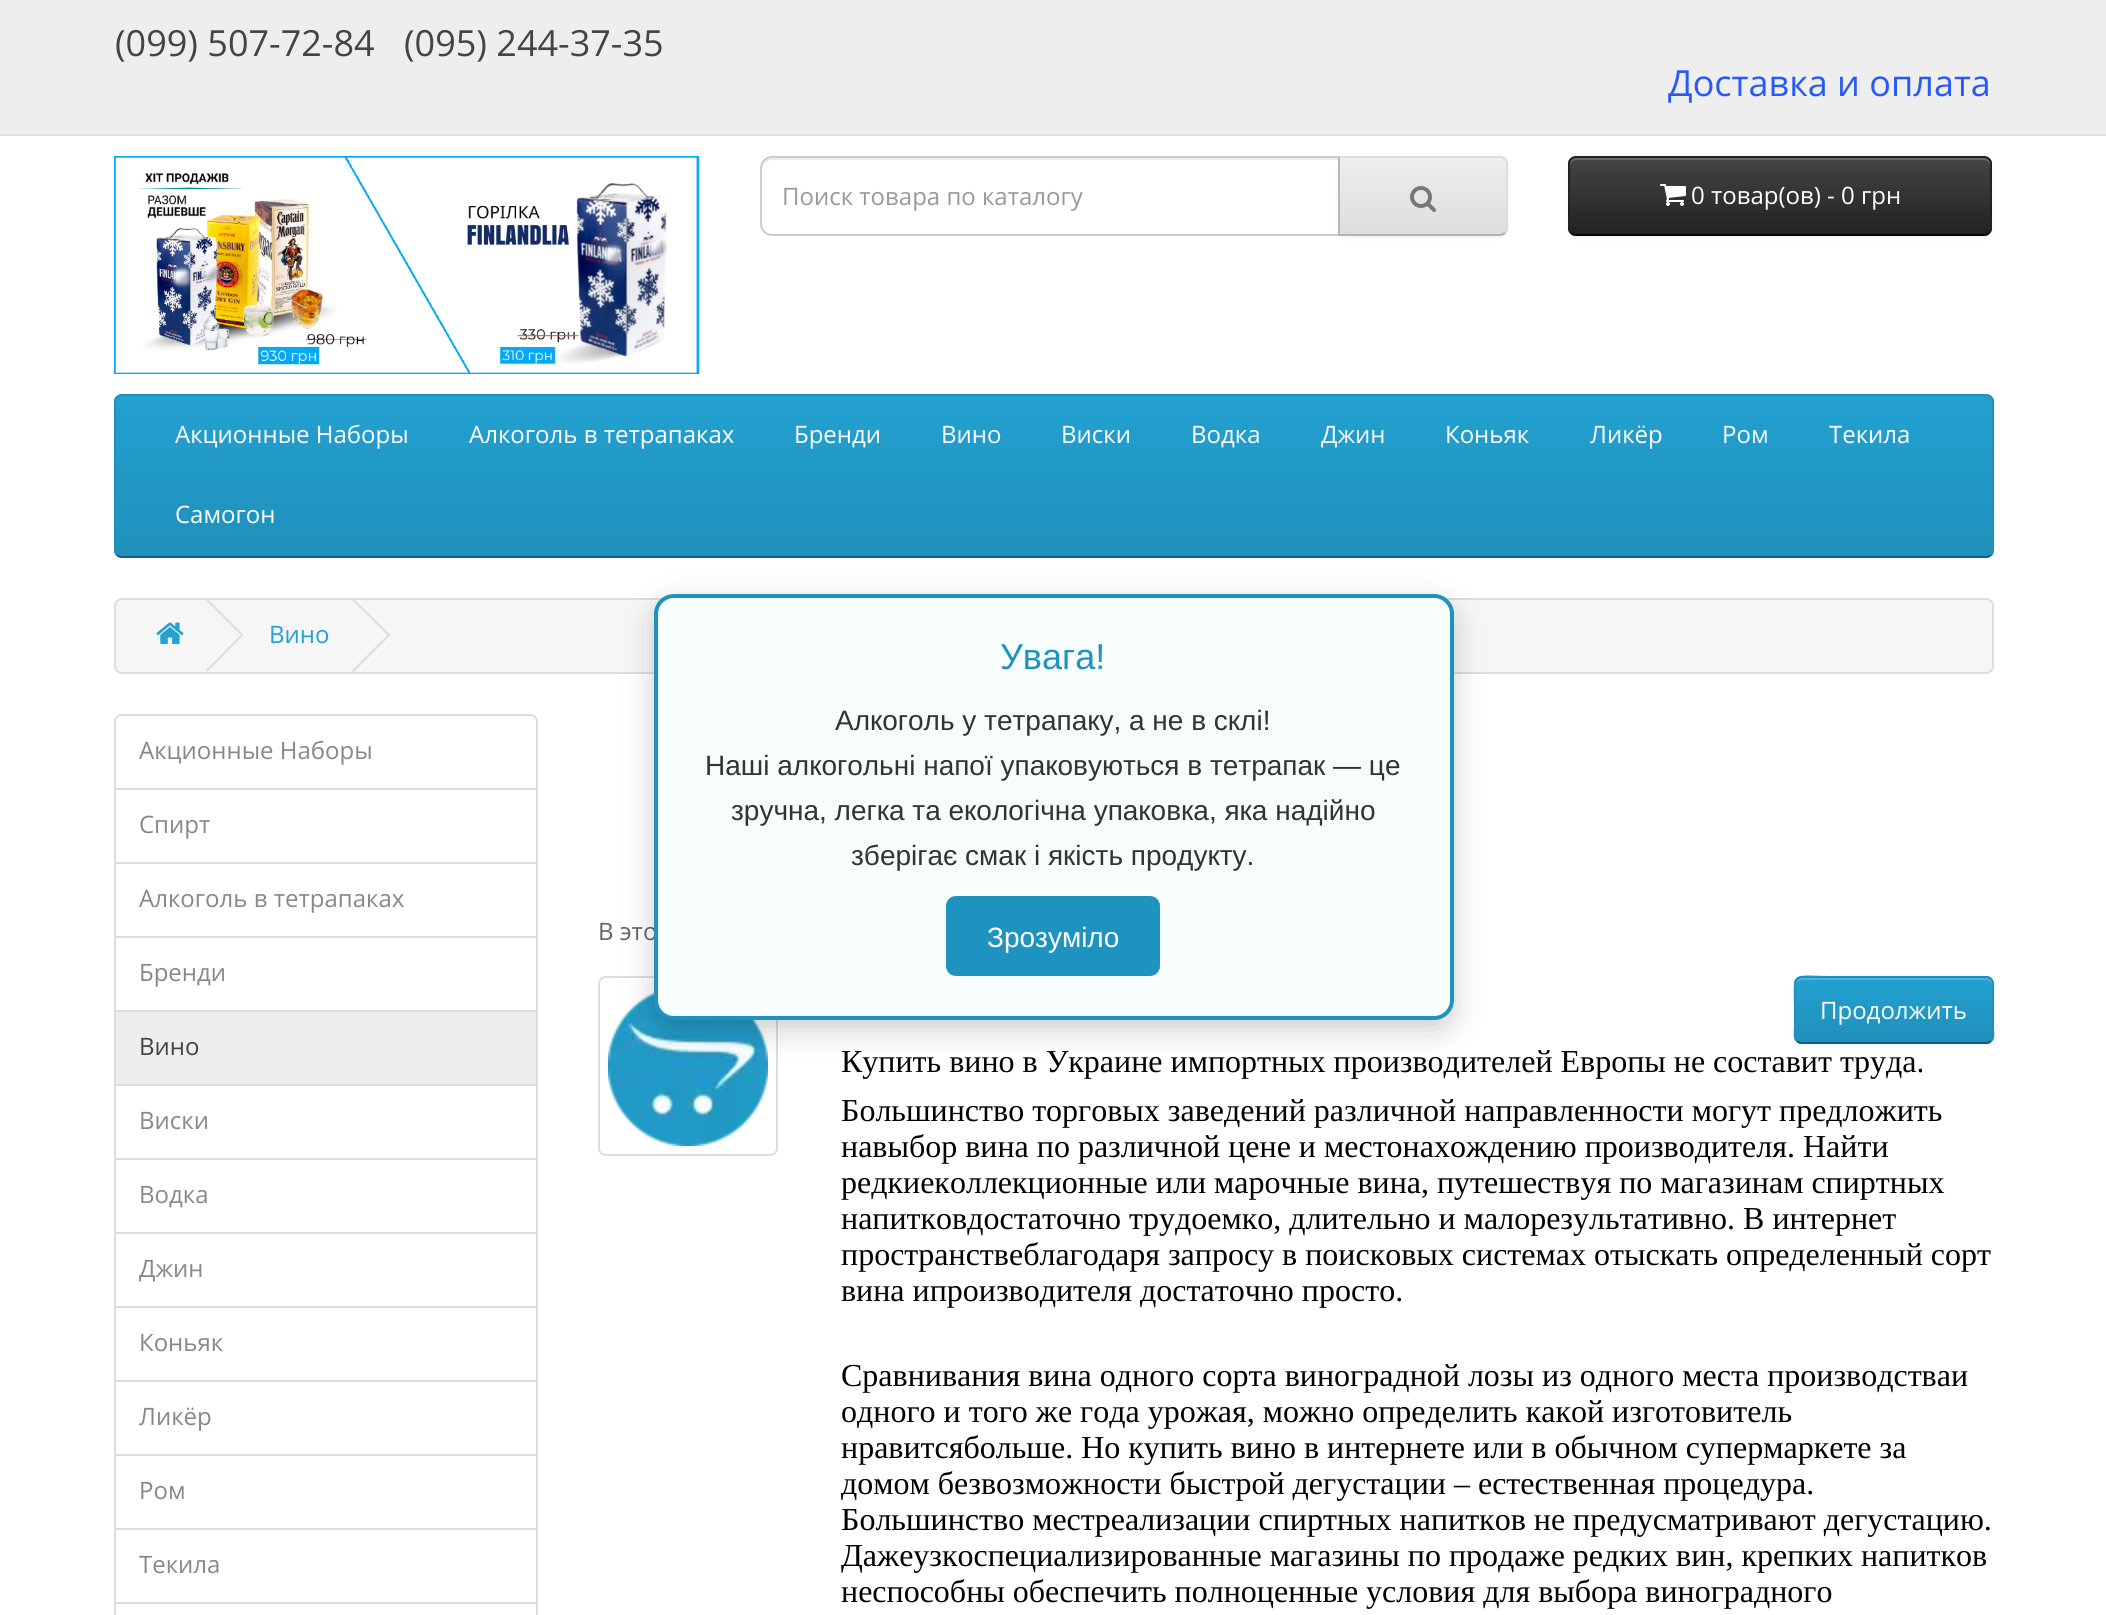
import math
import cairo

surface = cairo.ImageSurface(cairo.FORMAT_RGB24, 2106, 1615)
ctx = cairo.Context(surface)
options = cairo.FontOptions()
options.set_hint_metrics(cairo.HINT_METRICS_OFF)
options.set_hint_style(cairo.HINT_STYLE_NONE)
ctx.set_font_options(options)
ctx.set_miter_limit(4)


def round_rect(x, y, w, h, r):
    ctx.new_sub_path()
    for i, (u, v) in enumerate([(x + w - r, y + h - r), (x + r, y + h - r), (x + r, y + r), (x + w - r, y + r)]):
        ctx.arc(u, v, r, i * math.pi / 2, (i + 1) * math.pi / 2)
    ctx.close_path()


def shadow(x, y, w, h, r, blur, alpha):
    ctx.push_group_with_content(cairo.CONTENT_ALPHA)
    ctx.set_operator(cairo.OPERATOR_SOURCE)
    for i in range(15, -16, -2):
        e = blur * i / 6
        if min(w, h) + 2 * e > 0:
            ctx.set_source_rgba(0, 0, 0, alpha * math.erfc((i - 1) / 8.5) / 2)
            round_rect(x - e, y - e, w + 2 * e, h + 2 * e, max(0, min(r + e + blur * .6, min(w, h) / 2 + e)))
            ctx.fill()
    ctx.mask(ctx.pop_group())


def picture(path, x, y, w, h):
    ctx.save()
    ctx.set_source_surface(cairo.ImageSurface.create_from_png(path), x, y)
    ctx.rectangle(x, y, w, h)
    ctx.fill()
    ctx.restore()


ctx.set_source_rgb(1, 1, 1)
ctx.paint()
ctx.set_source_rgb(0.933, 0.933, 0.933)
ctx.rectangle(0, 0, 2106, 134)
ctx.fill()
ctx.set_source_rgb(0.886, 0.886, 0.886)
ctx.rectangle(0, 134, 2106, 2)
ctx.fill()
ctx.select_font_face("Open Sans")
ctx.set_font_size(36)
ctx.set_source_rgb(0.267, 0.267, 0.267)
ctx.move_to(115, 56)
ctx.show_text("(099) 507-72-84")
ctx.move_to(404, 56)
ctx.show_text("(095) 244-37-35")
ctx.set_source_rgb(0.153, 0.353, 0.957)
ctx.move_to(1668, 96)
ctx.show_text("Доставка и оплата")
picture("img1.png", 114, 156, 586, 218)
ctx.set_source_rgb(0.925, 0.925, 0.925)
ctx.new_path()
ctx.move_to(772, 160)
ctx.line_to(1338, 160)
ctx.line_to(1338, 158)
ctx.line_to(772, 158)
ctx.curve_to(766, 158, 762, 162, 762, 168)
ctx.line_to(762, 170)
ctx.curve_to(762, 164, 766, 160, 772, 160)
ctx.close_path()
ctx.fill()
ctx.new_path()
ctx.move_to(772, 157)
ctx.line_to(1339, 157)
ctx.line_to(1339, 235)
ctx.line_to(772, 235)
ctx.curve_to(766, 235, 761, 230, 761, 224)
ctx.line_to(761, 168)
ctx.curve_to(761, 162, 766, 157, 772, 157)
ctx.close_path()
ctx.set_source_rgb(0.8, 0.8, 0.8)
ctx.stroke()
ctx.set_font_size(24)
ctx.set_source_rgb(0.6, 0.6, 0.6)
ctx.move_to(782, 205)
ctx.show_text("Поиск товара по каталогу")
ctx.set_source_rgb(0, 0, 0)
shadow(1338, 158, 170, 80, 8, 2, 0.05)
ctx.save()
ctx.new_path()
ctx.move_to(1338, 156)
ctx.line_to(1500, 156)
ctx.curve_to(1504.5, 156, 1508, 159.5, 1508, 164)
ctx.line_to(1508, 228)
ctx.curve_to(1508, 232.5, 1504.5, 236, 1500, 236)
ctx.line_to(1338, 236)
ctx.close_path()
ctx.clip()
gradient = cairo.LinearGradient(1423, 158, 1423, 234)
gradient.add_color_stop_rgba(0, 0.933, 0.933, 0.933, 1)
gradient.add_color_stop_rgba(1, 0.867, 0.867, 0.867, 1)
ctx.set_source(gradient)
ctx.rectangle(1340, 158, 168, 76)
ctx.fill()
ctx.restore()
ctx.set_source_rgb(0.945, 0.945, 0.945)
ctx.new_path()
ctx.move_to(1340, 160)
ctx.line_to(1500, 160)
ctx.curve_to(1503, 160, 1506, 163, 1506, 166)
ctx.line_to(1506, 164)
ctx.curve_to(1506, 161, 1503, 158, 1500, 158)
ctx.line_to(1340, 158)
ctx.close_path()
ctx.fill()
ctx.set_source_rgb(0.867, 0.867, 0.867)
ctx.new_path()
ctx.move_to(1338, 156)
ctx.line_to(1340, 158)
ctx.line_to(1501, 158)
ctx.line_to(1504, 160)
ctx.line_to(1506, 158)
ctx.curve_to(1504, 157, 1502, 156, 1500, 156)
ctx.close_path()
ctx.fill()
ctx.new_path()
ctx.move_to(1508, 228)
ctx.line_to(1508, 164)
ctx.curve_to(1508, 162, 1507, 160, 1506, 158)
ctx.line_to(1504, 160)
ctx.curve_to(1505, 161, 1506, 162, 1506, 164)
ctx.line_to(1506, 228)
ctx.curve_to(1506, 230, 1505, 231, 1504, 232)
ctx.line_to(1506, 234)
ctx.curve_to(1507, 232, 1508, 230, 1508, 228)
ctx.close_path()
ctx.fill()
ctx.set_source_rgb(0.702, 0.702, 0.702)
ctx.new_path()
ctx.move_to(1500, 236)
ctx.curve_to(1502, 236, 1504, 235, 1506, 234)
ctx.line_to(1504, 232)
ctx.line_to(1501, 234)
ctx.line_to(1340, 234)
ctx.line_to(1338, 236)
ctx.close_path()
ctx.fill()
ctx.set_source_rgb(0.718, 0.718, 0.718)
ctx.new_path()
ctx.move_to(1338, 156)
ctx.line_to(1338, 236)
ctx.line_to(1340, 234)
ctx.line_to(1340, 158)
ctx.close_path()
ctx.fill()
picture("img2.png", 1410, 186, 26, 26)
ctx.set_source_rgb(0, 0, 0)
shadow(1568, 158, 424, 80, 8, 2, 0.05)
ctx.save()
round_rect(1568, 156, 424, 80, 8)
ctx.clip()
gradient = cairo.LinearGradient(1780, 158, 1780, 234)
gradient.add_color_stop_rgba(0, 0.267, 0.267, 0.267, 1)
gradient.add_color_stop_rgba(1, 0.133, 0.133, 0.133, 1)
ctx.set_source(gradient)
ctx.rectangle(1568, 158, 424, 76)
ctx.fill()
ctx.restore()
ctx.set_source_rgb(0.412, 0.412, 0.412)
ctx.new_path()
ctx.move_to(1576, 160)
ctx.line_to(1984, 160)
ctx.curve_to(1987, 160, 1990, 163, 1990, 166)
ctx.line_to(1990, 164)
ctx.curve_to(1990, 161, 1987, 158, 1984, 158)
ctx.line_to(1576, 158)
ctx.curve_to(1573, 158, 1570, 161, 1570, 164)
ctx.line_to(1570, 166)
ctx.curve_to(1570, 163, 1573, 160, 1576, 160)
ctx.close_path()
ctx.fill()
ctx.new_path()
ctx.move_to(1989, 233)
ctx.curve_to(1987.5, 234.5, 1986, 235, 1984, 235)
ctx.line_to(1576, 235)
ctx.curve_to(1574, 235, 1572.5, 234.5, 1571, 233)
ctx.set_source_rgb(0, 0, 0)
ctx.stroke()
ctx.new_path()
ctx.move_to(1571, 233)
ctx.curve_to(1569.5, 231.5, 1569, 230, 1569, 228)
ctx.line_to(1569, 164)
ctx.curve_to(1569, 162, 1569.5, 160.5, 1571, 159)
ctx.curve_to(1572.5, 157.5, 1574, 157, 1576, 157)
ctx.line_to(1984, 157)
ctx.curve_to(1986, 157, 1987.5, 157.5, 1989, 159)
ctx.curve_to(1990.5, 160.5, 1991, 162, 1991, 164)
ctx.line_to(1991, 228)
ctx.curve_to(1991, 230, 1990.5, 231.5, 1989, 233)
ctx.set_source_rgb(0.133, 0.133, 0.133)
ctx.stroke()
picture("img3.png", 1660, 184, 26, 22)
ctx.set_source_rgb(1, 1, 1)
ctx.move_to(1691, 204)
ctx.show_text("0 товар(ов) - 0 грн")
ctx.save()
round_rect(114, 394, 1880, 164, 8)
ctx.clip()
gradient = cairo.LinearGradient(1054, 396, 1054, 556)
gradient.add_color_stop_rgba(0, 0.137, 0.631, 0.82, 1)
gradient.add_color_stop_rgba(1, 0.122, 0.565, 0.733, 1)
ctx.set_source(gradient)
ctx.rectangle(114, 396, 1880, 160)
ctx.fill()
ctx.restore()
ctx.new_path()
ctx.move_to(1991, 555)
ctx.curve_to(1989.5, 556.5, 1988, 557, 1986, 557)
ctx.line_to(122, 557)
ctx.curve_to(120, 557, 118.5, 556.5, 117, 555)
ctx.set_source_rgb(0.078, 0.369, 0.478)
ctx.stroke()
ctx.new_path()
ctx.move_to(117, 555)
ctx.curve_to(115.5, 553.5, 115, 552, 115, 550)
ctx.line_to(115, 402)
ctx.curve_to(115, 400, 115.5, 398.5, 117, 397)
ctx.curve_to(118.5, 395.5, 120, 395, 122, 395)
ctx.line_to(1986, 395)
ctx.curve_to(1988, 395, 1989.5, 395.5, 1991, 397)
ctx.curve_to(1992.5, 398.5, 1993, 400, 1993, 402)
ctx.line_to(1993, 550)
ctx.curve_to(1993, 552, 1992.5, 553.5, 1991, 555)
ctx.set_source_rgb(0.122, 0.565, 0.733)
ctx.stroke()
ctx.set_source_rgb(1, 1, 1)
ctx.move_to(175, 443)
ctx.show_text("Акционные Наборы")
ctx.move_to(469, 443)
ctx.show_text("Алкоголь в тетрапаках")
ctx.move_to(794, 443)
ctx.show_text("Бренди")
ctx.move_to(941, 443)
ctx.show_text("Вино")
ctx.move_to(1061, 443)
ctx.show_text("Виски")
ctx.move_to(1191, 443)
ctx.show_text("Водка")
ctx.move_to(1321, 443)
ctx.show_text("Джин")
ctx.move_to(1445, 443)
ctx.show_text("Коньяк")
ctx.move_to(1590, 443)
ctx.show_text("Ликёр")
ctx.move_to(1722, 443)
ctx.show_text("Ром")
ctx.move_to(1829, 443)
ctx.show_text("Текила")
ctx.move_to(175, 523)
ctx.show_text("Самогон")
ctx.set_source_rgb(0.961, 0.961, 0.961)
round_rect(115, 599, 1878, 74, 7)
ctx.fill_preserve()
ctx.set_source_rgb(0.867, 0.867, 0.867)
ctx.stroke()
picture("img4.png", 156, 622, 28, 22)
ctx.new_path()
ctx.move_to(205.5, 600)
ctx.line_to(207, 598.5)
ctx.line_to(243.5, 635)
ctx.line_to(242, 636.5)
ctx.close_path()
ctx.fill()
ctx.new_path()
ctx.move_to(205.5, 670.5)
ctx.line_to(242, 633.5)
ctx.line_to(243.5, 635)
ctx.line_to(207, 672)
ctx.close_path()
ctx.fill()
ctx.set_source_rgb(0.137, 0.631, 0.82)
ctx.move_to(269, 643)
ctx.show_text("Вино")
ctx.set_source_rgb(0.867, 0.867, 0.867)
ctx.new_path()
ctx.move_to(352, 600)
ctx.line_to(353.5, 598.5)
ctx.line_to(390.5, 635)
ctx.line_to(389, 636.5)
ctx.close_path()
ctx.fill()
ctx.new_path()
ctx.move_to(352, 670.5)
ctx.line_to(389, 633.5)
ctx.line_to(390.5, 635)
ctx.line_to(353.5, 672)
ctx.close_path()
ctx.fill()
ctx.new_path()
ctx.move_to(122, 715)
ctx.line_to(530, 715)
ctx.curve_to(534, 715, 537, 718, 537, 722)
ctx.line_to(537, 789)
ctx.line_to(115, 789)
ctx.line_to(115, 722)
ctx.curve_to(115, 718, 118, 715, 122, 715)
ctx.close_path()
ctx.stroke()
ctx.set_source_rgb(0.533, 0.533, 0.533)
ctx.move_to(139, 759)
ctx.show_text("Акционные Наборы")
ctx.rectangle(115, 789, 422, 74)
ctx.set_source_rgb(0.867, 0.867, 0.867)
ctx.stroke()
ctx.set_source_rgb(0.533, 0.533, 0.533)
ctx.move_to(139, 833)
ctx.show_text("Спирт")
ctx.rectangle(115, 863, 422, 74)
ctx.set_source_rgb(0.867, 0.867, 0.867)
ctx.stroke()
ctx.set_source_rgb(0.533, 0.533, 0.533)
ctx.move_to(139, 907)
ctx.show_text("Алкоголь в тетрапаках")
ctx.rectangle(115, 937, 422, 74)
ctx.set_source_rgb(0.867, 0.867, 0.867)
ctx.stroke()
ctx.set_source_rgb(0.533, 0.533, 0.533)
ctx.move_to(139, 981)
ctx.show_text("Бренди")
ctx.rectangle(115, 1085, 422, 74)
ctx.set_source_rgb(0.867, 0.867, 0.867)
ctx.stroke()
ctx.set_source_rgb(0.933, 0.933, 0.933)
ctx.rectangle(115, 1011, 422, 74)
ctx.fill_preserve()
ctx.set_source_rgb(0.867, 0.867, 0.867)
ctx.stroke()
ctx.set_source_rgb(0.267, 0.267, 0.267)
ctx.move_to(139, 1055)
ctx.show_text("Вино")
ctx.set_source_rgb(0.533, 0.533, 0.533)
ctx.move_to(139, 1129)
ctx.show_text("Виски")
ctx.rectangle(115, 1159, 422, 74)
ctx.set_source_rgb(0.867, 0.867, 0.867)
ctx.stroke()
ctx.set_source_rgb(0.533, 0.533, 0.533)
ctx.move_to(139, 1203)
ctx.show_text("Водка")
ctx.rectangle(115, 1233, 422, 74)
ctx.set_source_rgb(0.867, 0.867, 0.867)
ctx.stroke()
ctx.set_source_rgb(0.533, 0.533, 0.533)
ctx.move_to(139, 1277)
ctx.show_text("Джин")
ctx.rectangle(115, 1307, 422, 74)
ctx.set_source_rgb(0.867, 0.867, 0.867)
ctx.stroke()
ctx.set_source_rgb(0.533, 0.533, 0.533)
ctx.move_to(139, 1351)
ctx.show_text("Коньяк")
ctx.rectangle(115, 1381, 422, 74)
ctx.set_source_rgb(0.867, 0.867, 0.867)
ctx.stroke()
ctx.set_source_rgb(0.533, 0.533, 0.533)
ctx.move_to(139, 1425)
ctx.show_text("Ликёр")
ctx.rectangle(115, 1455, 422, 74)
ctx.set_source_rgb(0.867, 0.867, 0.867)
ctx.stroke()
ctx.set_source_rgb(0.533, 0.533, 0.533)
ctx.move_to(139, 1499)
ctx.show_text("Ром")
ctx.rectangle(115, 1529, 422, 74)
ctx.set_source_rgb(0.867, 0.867, 0.867)
ctx.stroke()
ctx.set_source_rgb(0.533, 0.533, 0.533)
ctx.move_to(139, 1573)
ctx.show_text("Текила")
ctx.rectangle(115, 1603, 422, 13)
ctx.set_source_rgb(0.867, 0.867, 0.867)
ctx.stroke()
ctx.set_source_rgb(0.4, 0.4, 0.4)
ctx.move_to(598, 940)
ctx.show_text("В это")
ctx.set_source_rgb(0, 0, 0)
shadow(1794, 978, 200, 68, 8, 2, 0.05)
ctx.set_source_rgb(0.133, 0.604, 0.784)
round_rect(1794, 976, 200, 68, 8)
ctx.fill()
ctx.save()
round_rect(1794, 976, 200, 68, 8)
ctx.clip()
gradient = cairo.LinearGradient(1894, 978, 1894, 1042)
gradient.add_color_stop_rgba(0, 0.137, 0.631, 0.82, 1)
gradient.add_color_stop_rgba(1, 0.122, 0.565, 0.733, 1)
ctx.set_source(gradient)
ctx.rectangle(1794, 978, 200, 64)
ctx.fill()
ctx.restore()
ctx.set_source_rgb(0.31, 0.706, 0.855)
ctx.new_path()
ctx.move_to(1802, 980)
ctx.line_to(1986, 980)
ctx.curve_to(1989, 980, 1992, 983, 1992, 986)
ctx.line_to(1992, 984)
ctx.curve_to(1992, 981, 1989, 978, 1986, 978)
ctx.line_to(1802, 978)
ctx.curve_to(1799, 978, 1796, 981, 1796, 984)
ctx.line_to(1796, 986)
ctx.curve_to(1796, 983, 1799, 980, 1802, 980)
ctx.close_path()
ctx.fill()
ctx.new_path()
ctx.move_to(1991, 1041)
ctx.curve_to(1989.5, 1042.5, 1988, 1043, 1986, 1043)
ctx.line_to(1802, 1043)
ctx.curve_to(1800, 1043, 1798.5, 1042.5, 1797, 1041)
ctx.set_source_rgb(0.078, 0.369, 0.478)
ctx.stroke()
ctx.new_path()
ctx.move_to(1797, 1041)
ctx.curve_to(1793.5, 1037.5, 1795, 1031, 1795, 1027.5)
ctx.line_to(1795, 1010)
ctx.curve_to(1795, 970, 1789.5, 977, 1832.5, 977)
ctx.line_to(1986, 977)
ctx.curve_to(1994.5, 977, 1993, 987.5, 1993, 992.5)
ctx.line_to(1993, 1027.5)
ctx.curve_to(1993, 1031, 1994.5, 1037.5, 1991, 1041)
ctx.set_source_rgb(0.122, 0.565, 0.733)
ctx.stroke()
ctx.set_source_rgb(1, 1, 1)
ctx.move_to(1820, 1019)
ctx.show_text("Продолжить")
round_rect(599, 977, 178, 178, 7)
ctx.set_source_rgb(0.867, 0.867, 0.867)
ctx.stroke()
picture("img5.png", 608, 991, 160, 155)
ctx.select_font_face("Liberation Serif")
ctx.set_font_size(32)
ctx.set_source_rgb(0, 0, 0)
ctx.move_to(841, 1072)
ctx.show_text("Купить вино в Украине импортных производителей Европы не составит труда.")
ctx.move_to(841, 1121)
ctx.show_text("Большинство торговых заведений различной направленности могут предложить")
ctx.move_to(841, 1157)
ctx.show_text("навыбор вина по различной цене и местонахождению производителя. Найти")
ctx.move_to(841, 1193)
ctx.show_text("редкиеколлекционные или марочные вина, путешествуя по магазинам спиртных")
ctx.move_to(841, 1229)
ctx.show_text("напитковдостаточно трудоемко, длительно и малорезультативно. В интернет")
ctx.move_to(841, 1265)
ctx.show_text("пространствеблагодаря запросу в поисковых системах отыскать определенный сорт")
ctx.move_to(841, 1301)
ctx.show_text("вина ипроизводителя достаточно просто.")
ctx.move_to(841, 1386)
ctx.show_text("Сравнивания вина одного сорта виноградной лозы из одного места производстваи")
ctx.move_to(841, 1422)
ctx.show_text("одного и того же года урожая, можно определить какой изготовитель")
ctx.move_to(841, 1458)
ctx.show_text("нравитсябольше. Но купить вино в интернете или в обычном супермаркете за")
ctx.move_to(841, 1494)
ctx.show_text("домом безвозможности быстрой дегустации – естественная процедура.")
ctx.move_to(841, 1530)
ctx.show_text("Большинство местреализации спиртных напитков не предусматривают дегустацию.")
ctx.move_to(841, 1566)
ctx.show_text("Дажеузкоспециализированные магазины по продаже редких вин, крепких напитков")
ctx.move_to(841, 1602)
ctx.show_text("неспособны обеспечить полноценные условия для выбора виноградного")
ctx.set_source_rgb(0, 0, 0)
shadow(654, 604, 800, 426, 20, 15, 0.2)
ctx.set_source_rgb(0.965, 0.992, 0.988)
round_rect(656, 596, 796, 422, 18)
ctx.fill_preserve()
ctx.set_source_rgb(0.122, 0.576, 0.749)
ctx.set_line_width(4)
ctx.stroke()
ctx.select_font_face("Liberation Sans")
ctx.set_font_size(36)
ctx.move_to(1000, 669)
ctx.show_text("Увага!")
ctx.set_font_size(28)
ctx.set_source_rgb(0.2, 0.2, 0.2)
ctx.move_to(835, 730)
ctx.show_text("Алкоголь у тетрапаку, а не в склі!")
ctx.move_to(705, 775)
ctx.show_text("Наші алкогольні напої упаковуються в тетрапак — це")
ctx.move_to(731, 820)
ctx.show_text("зручна, легка та екологічна упаковка, яка надійно")
ctx.move_to(851, 865)
ctx.show_text("зберігає смак і якість продукту.")
ctx.set_source_rgb(0.122, 0.576, 0.749)
round_rect(946, 896, 214, 80, 10)
ctx.fill()
ctx.set_source_rgb(1, 1, 1)
ctx.move_to(987, 947)
ctx.show_text("Зрозуміло")
surface.write_to_png("page.png")
